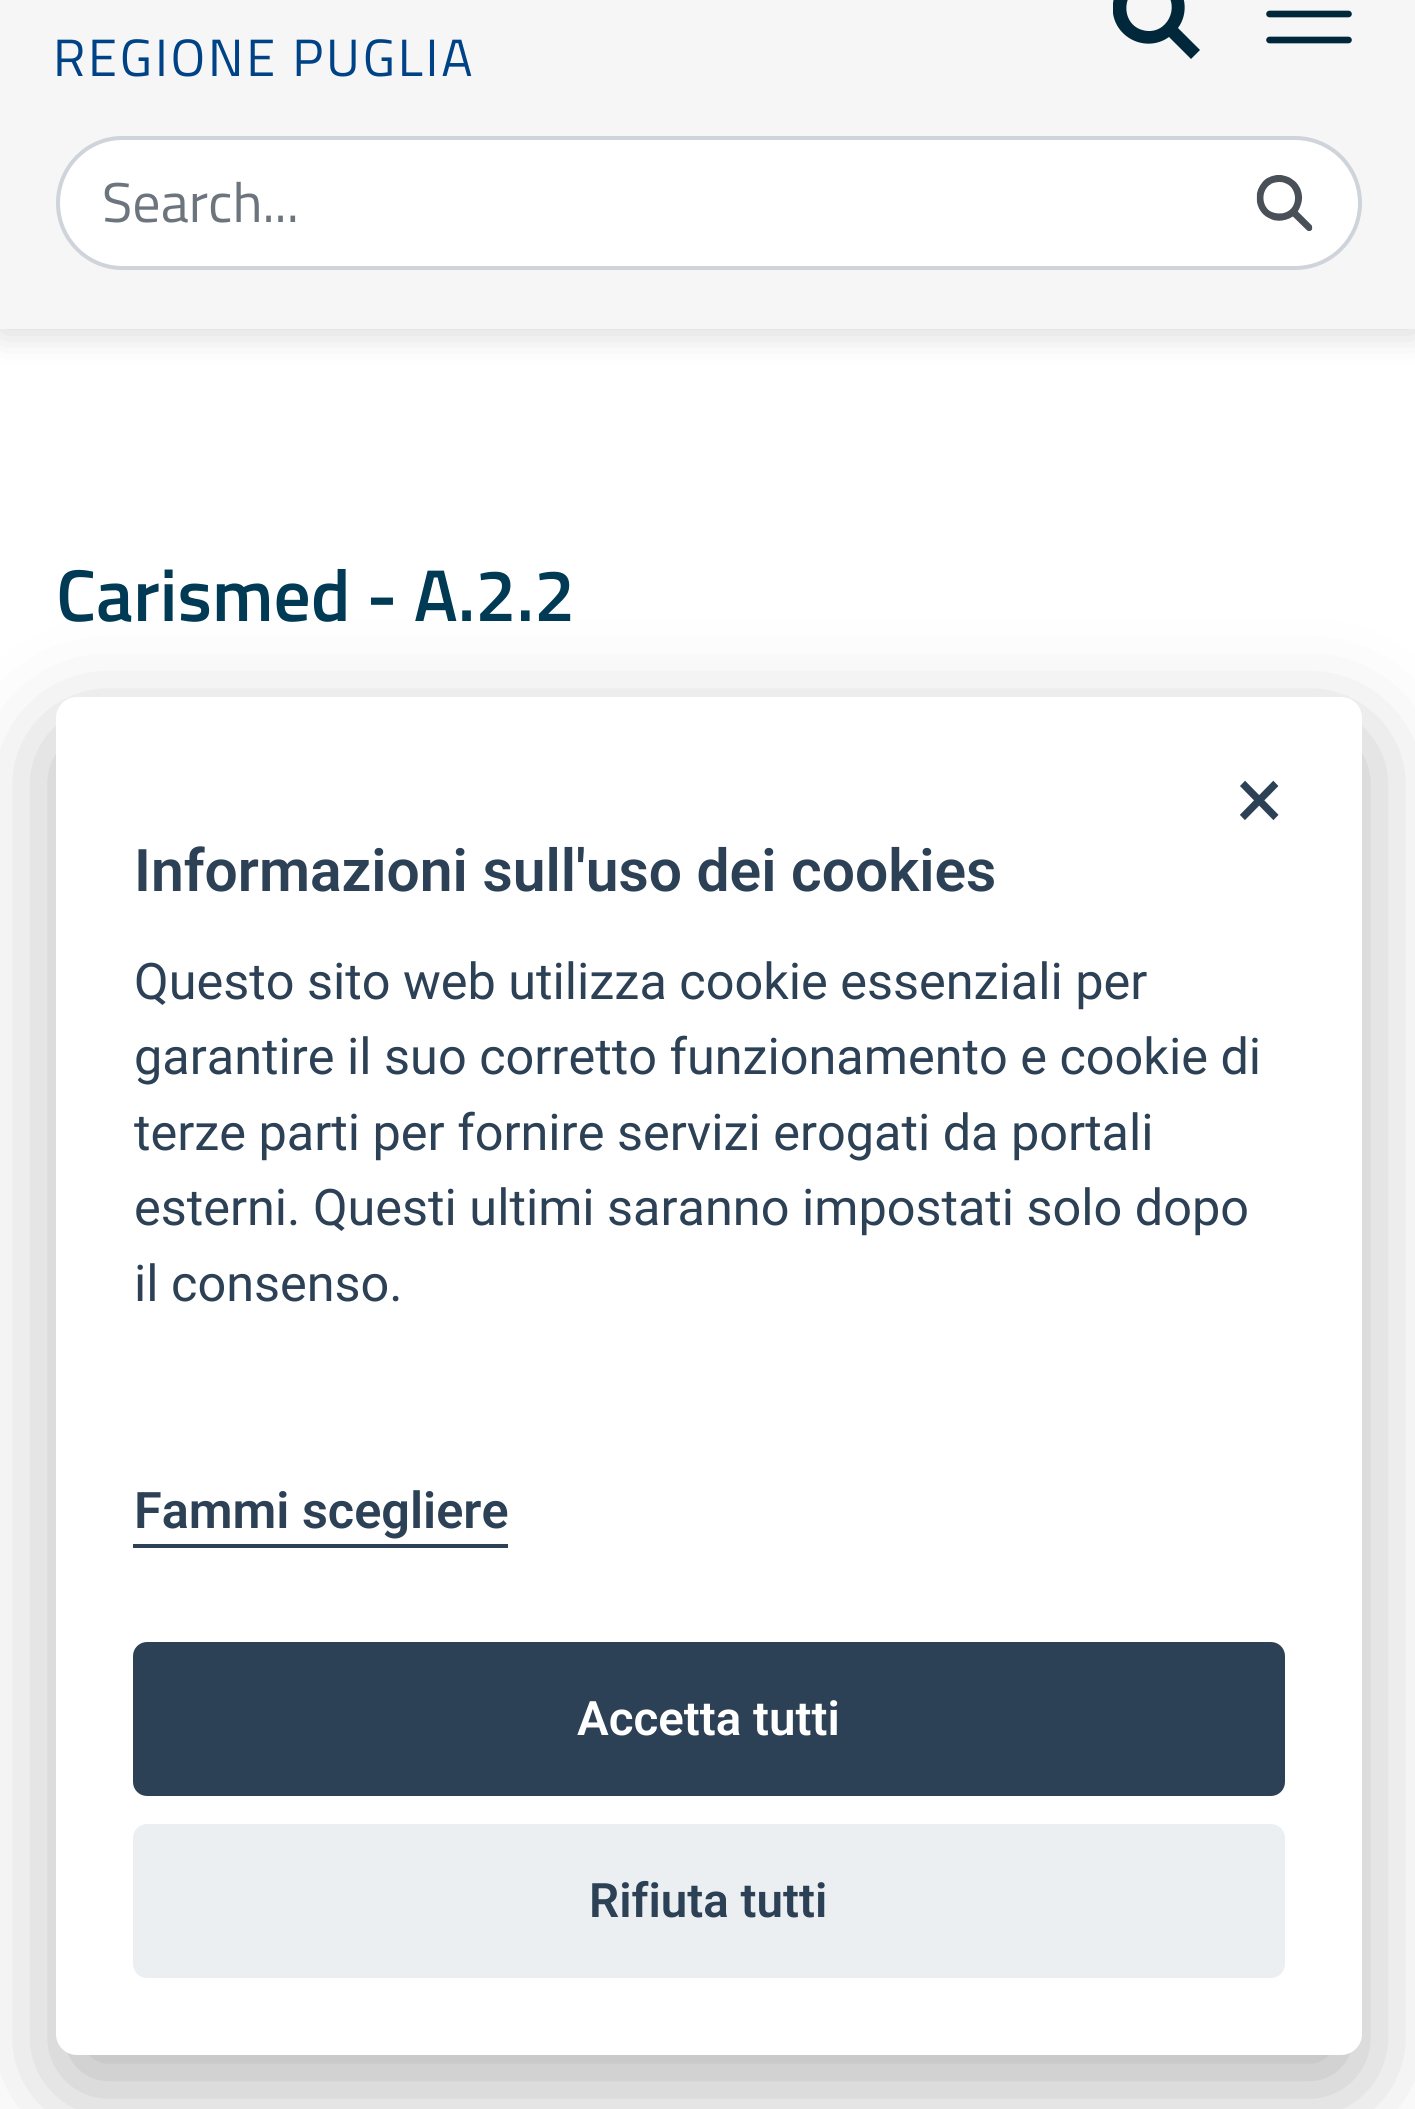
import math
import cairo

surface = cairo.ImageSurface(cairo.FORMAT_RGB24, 1415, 2109)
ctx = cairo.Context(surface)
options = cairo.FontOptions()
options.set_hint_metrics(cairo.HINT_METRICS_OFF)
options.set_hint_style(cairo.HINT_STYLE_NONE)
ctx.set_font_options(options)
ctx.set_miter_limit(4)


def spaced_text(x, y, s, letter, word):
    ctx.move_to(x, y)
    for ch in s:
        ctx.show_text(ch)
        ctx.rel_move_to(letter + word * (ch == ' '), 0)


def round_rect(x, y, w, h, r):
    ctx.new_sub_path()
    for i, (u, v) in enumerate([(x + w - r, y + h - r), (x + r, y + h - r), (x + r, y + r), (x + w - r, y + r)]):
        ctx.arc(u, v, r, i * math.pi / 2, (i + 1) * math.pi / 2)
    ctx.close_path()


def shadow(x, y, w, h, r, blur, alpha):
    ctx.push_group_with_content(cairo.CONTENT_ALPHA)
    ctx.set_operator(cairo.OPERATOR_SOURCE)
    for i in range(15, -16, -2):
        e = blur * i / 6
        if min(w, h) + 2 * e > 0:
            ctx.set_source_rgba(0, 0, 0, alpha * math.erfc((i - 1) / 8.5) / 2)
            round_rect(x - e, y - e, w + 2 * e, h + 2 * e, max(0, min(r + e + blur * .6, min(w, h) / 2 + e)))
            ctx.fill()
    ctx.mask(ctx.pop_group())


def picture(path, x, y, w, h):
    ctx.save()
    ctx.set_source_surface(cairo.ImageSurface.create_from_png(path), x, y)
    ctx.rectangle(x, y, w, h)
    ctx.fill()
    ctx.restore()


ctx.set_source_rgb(1, 1, 1)
ctx.paint()
ctx.set_source_rgb(0, 0, 0)
shadow(0, -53, 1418, 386, 0, 17.5, 0.16)
ctx.set_source_rgb(0.961, 0.961, 0.961)
ctx.rectangle(0, 0, 1415, 329)
ctx.fill()
ctx.select_font_face("Titillium Web")
ctx.set_font_size(52.5)
ctx.set_source_rgb(0, 0.259, 0.525)
spaced_text(53, 76, "REGIONE PUGLIA", 2.75, 0)
ctx.save()
ctx.rectangle(1113, 0, 88, 60)
ctx.clip()
ctx.set_source_rgb(0.004, 0.157, 0.227)
ctx.new_path()
ctx.move_to(1191, 59)
ctx.line_to(1169, 37)
ctx.curve_to(1154, 48, 1133, 45, 1121, 31)
ctx.curve_to(1109, 17, 1110, -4, 1123, -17)
ctx.curve_to(1137, -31, 1157, -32, 1172, -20)
ctx.curve_to(1186, -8, 1189, 13, 1178, 28)
ctx.line_to(1200, 50)
ctx.close_path()
ctx.move_to(1149, -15)
ctx.curve_to(1120, -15, 1118, 29, 1148, 31)
ctx.curve_to(1170, 32, 1181, 2, 1162, -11)
ctx.curve_to(1158, -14, 1153, -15, 1149, -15)
ctx.close_path()
ctx.fill()
ctx.restore()
ctx.new_path()
ctx.move_to(1269.5, -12)
ctx.line_to(1348.5, -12)
ctx.move_to(1269.5, 14)
ctx.line_to(1348.5, 14)
ctx.move_to(1269.5, 40)
ctx.line_to(1348.5, 40)
ctx.set_source_rgb(0.004, 0.157, 0.227)
ctx.set_line_width(6.6)
ctx.set_line_cap(cairo.LINE_CAP_ROUND)
ctx.stroke()
ctx.set_source_rgb(1, 1, 1)
ctx.new_path()
ctx.move_to(123, 140)
ctx.line_to(1211, 140)
ctx.line_to(1211, 266)
ctx.line_to(123, 266)
ctx.curve_to(88, 266, 60, 238, 60, 203)
ctx.curve_to(60, 168, 88, 140, 123, 140)
ctx.close_path()
ctx.fill()
ctx.set_source_rgb(0.808, 0.831, 0.855)
ctx.set_fill_rule(cairo.FILL_RULE_EVEN_ODD)
ctx.new_path()
ctx.move_to(122, 136)
ctx.line_to(1211, 136)
ctx.line_to(1211, 270)
ctx.line_to(122, 270)
ctx.curve_to(86, 270, 56, 240, 56, 203)
ctx.curve_to(56, 166, 86, 136, 122, 136)
ctx.close_path()
ctx.move_to(122, 140)
ctx.line_to(1211, 140)
ctx.line_to(1211, 266)
ctx.line_to(122, 266)
ctx.curve_to(88, 266, 60, 238, 60, 203)
ctx.curve_to(60, 168, 88, 140, 122, 140)
ctx.close_path()
ctx.fill()
ctx.set_font_size(56)
ctx.set_source_rgb(0.424, 0.459, 0.49)
ctx.move_to(102, 222)
ctx.show_text("Search...")
ctx.set_source_rgb(1, 1, 1)
ctx.new_path()
ctx.move_to(1211, 140)
ctx.line_to(1295, 140)
ctx.curve_to(1330, 140, 1358, 168, 1358, 203)
ctx.curve_to(1358, 238, 1330, 266, 1295, 266)
ctx.line_to(1211, 266)
ctx.close_path()
ctx.fill()
ctx.set_source_rgb(0.808, 0.831, 0.855)
ctx.new_path()
ctx.move_to(1211, 136)
ctx.line_to(1295, 136)
ctx.curve_to(1332, 136, 1362, 166, 1362, 203)
ctx.curve_to(1362, 240, 1332, 270, 1295, 270)
ctx.line_to(1211, 270)
ctx.close_path()
ctx.move_to(1211, 140)
ctx.line_to(1295, 140)
ctx.curve_to(1330, 140, 1358, 168, 1358, 203)
ctx.curve_to(1358, 238, 1330, 266, 1295, 266)
ctx.line_to(1211, 266)
ctx.close_path()
ctx.fill()
picture("img1.png", 1256, 175, 57, 56)
ctx.select_font_face("Titillium Web SemiBold")
ctx.set_font_size(73.5)
ctx.set_source_rgb(0, 0.227, 0.329)
ctx.move_to(56, 621)
ctx.show_text("Carismed - A.2.2")
ctx.set_source_rgb(0.008, 0.008, 0.012)
shadow(56, 732, 1306, 1358, 21, 52.5, 0.28)
ctx.set_source_rgb(1, 1, 1)
round_rect(56, 697, 1306, 1358, 21)
ctx.fill()
ctx.select_font_face("Roboto")
ctx.set_font_size(88)
ctx.set_source_rgb(0.176, 0.255, 0.337)
ctx.move_to(1236, 829)
ctx.show_text("×")
ctx.select_font_face("Roboto SemiBold")
ctx.set_font_size(58.75)
ctx.move_to(134, 891)
ctx.show_text("Informazioni sull'uso dei cookies")
ctx.select_font_face("Roboto")
ctx.set_font_size(50.4)
ctx.move_to(134, 999)
ctx.show_text("Questo sito web utilizza cookie essenziali per")
ctx.move_to(134, 1074)
ctx.show_text("garantire il suo corretto funzionamento e cookie di")
ctx.move_to(134, 1150)
ctx.show_text("terze parti per fornire servizi erogati da portali")
ctx.move_to(134, 1225)
ctx.show_text("esterni. Questi ultimi saranno impostati solo dopo")
ctx.move_to(134, 1301)
ctx.show_text("il consenso.")
ctx.select_font_face("Roboto SemiBold")
ctx.move_to(134, 1528)
ctx.show_text("Fammi scegliere")
ctx.rectangle(133, 1544, 375, 4)
ctx.fill()
round_rect(133, 1642, 1152, 154, 14)
ctx.fill()
ctx.set_font_size(47.5)
ctx.set_source_rgb(1, 1, 1)
ctx.move_to(577, 1735)
ctx.show_text("Accetta tutti")
ctx.set_source_rgb(0.918, 0.937, 0.949)
round_rect(133, 1824, 1152, 154, 14)
ctx.fill()
ctx.set_source_rgb(0.176, 0.255, 0.337)
ctx.move_to(589, 1917)
ctx.show_text("Rifiuta tutti")
surface.write_to_png("page.png")
